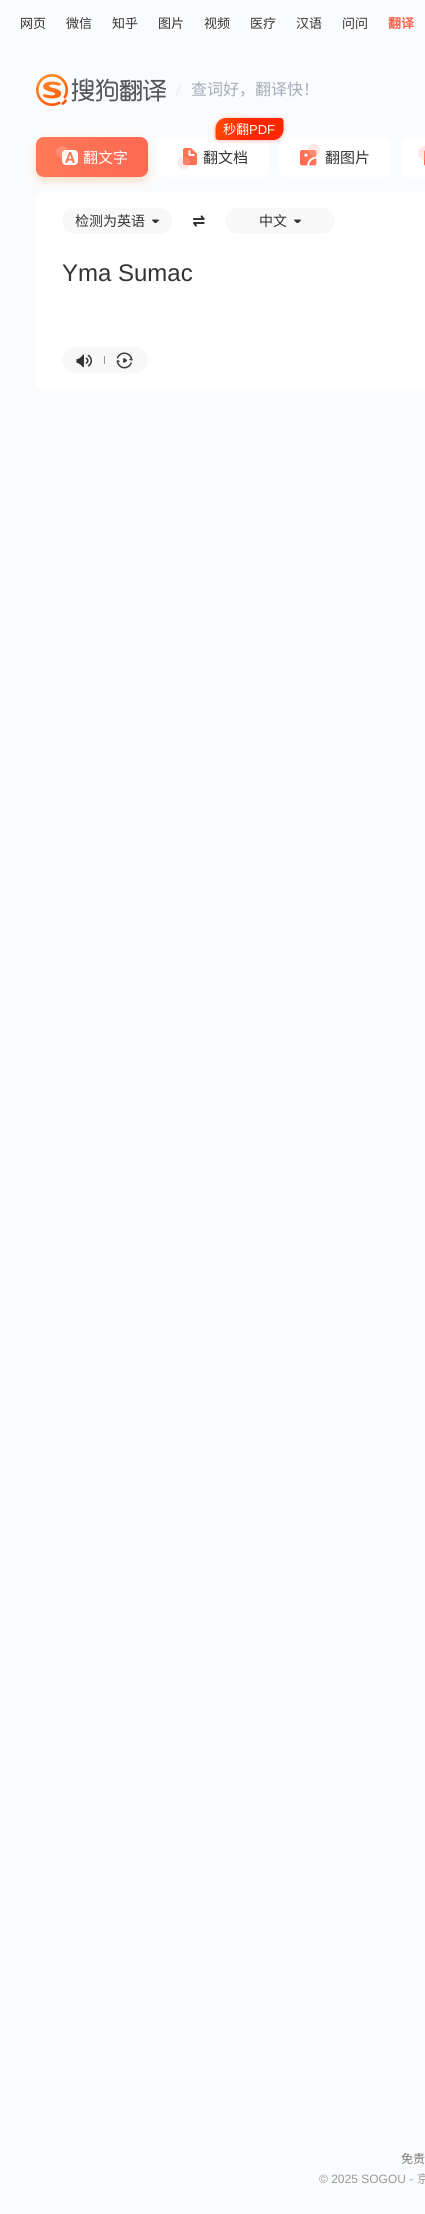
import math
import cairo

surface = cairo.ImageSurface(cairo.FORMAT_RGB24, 425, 2214)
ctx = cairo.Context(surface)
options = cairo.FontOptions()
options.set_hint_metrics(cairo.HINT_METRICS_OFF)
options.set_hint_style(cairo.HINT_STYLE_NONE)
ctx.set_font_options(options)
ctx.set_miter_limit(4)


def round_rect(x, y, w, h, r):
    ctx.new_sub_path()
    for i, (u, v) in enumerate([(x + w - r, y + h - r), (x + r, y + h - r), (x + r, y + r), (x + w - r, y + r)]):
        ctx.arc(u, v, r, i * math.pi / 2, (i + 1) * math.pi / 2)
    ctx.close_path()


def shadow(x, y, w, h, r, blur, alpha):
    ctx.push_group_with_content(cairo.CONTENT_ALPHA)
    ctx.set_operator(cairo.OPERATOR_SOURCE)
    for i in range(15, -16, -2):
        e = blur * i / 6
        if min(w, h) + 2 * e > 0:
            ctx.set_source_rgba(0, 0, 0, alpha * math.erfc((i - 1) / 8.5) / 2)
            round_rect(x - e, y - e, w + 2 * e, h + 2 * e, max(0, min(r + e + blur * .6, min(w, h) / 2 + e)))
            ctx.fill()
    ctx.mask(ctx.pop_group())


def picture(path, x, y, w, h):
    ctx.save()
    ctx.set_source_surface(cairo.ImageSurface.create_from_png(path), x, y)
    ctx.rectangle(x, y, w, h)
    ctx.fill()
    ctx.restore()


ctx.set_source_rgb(0.98, 0.984, 0.988)
ctx.paint()
ctx.select_font_face("Noto Sans CJK SC")
ctx.set_font_size(13)
ctx.set_source_rgb(0.2, 0.2, 0.2)
ctx.move_to(20, 28)
ctx.show_text("网页")
ctx.move_to(66, 28)
ctx.show_text("微信")
ctx.move_to(112, 28)
ctx.show_text("知乎")
ctx.move_to(158, 28)
ctx.show_text("图片")
ctx.move_to(204, 28)
ctx.show_text("视频")
ctx.move_to(250, 28)
ctx.show_text("医疗")
ctx.move_to(296, 28)
ctx.show_text("汉语")
ctx.move_to(342, 28)
ctx.show_text("问问")
ctx.select_font_face("Noto Sans CJK SC", cairo.FONT_SLANT_NORMAL, cairo.FONT_WEIGHT_BOLD)
ctx.set_source_rgb(1, 0.349, 0.263)
ctx.move_to(388, 28)
ctx.show_text("翻译")
picture("img1.png", 36, 74, 130, 32)
ctx.set_source_rgb(0.863, 0.863, 0.863)
ctx.new_path()
ctx.move_to(181, 82.5)
ctx.line_to(181.5, 82.5)
ctx.line_to(176, 97.5)
ctx.line_to(175.5, 97.5)
ctx.close_path()
ctx.fill()
ctx.select_font_face("Noto Sans CJK SC")
ctx.set_font_size(16)
ctx.set_source_rgb(0.635, 0.678, 0.722)
ctx.move_to(191, 95)
ctx.show_text("查词好，翻译快！")
ctx.set_source_rgb(1, 1, 1)
round_rect(36, 192, 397, 199, 8)
ctx.fill()
ctx.set_source_rgb(1, 0.475, 0.035)
shadow(36, 141, 112, 40, 8, 4, 0.22)
gradient = cairo.LinearGradient(36, 157, 148, 157)
gradient.add_color_stop_rgba(0, 1, 0.478, 0.341, 1)
gradient.add_color_stop_rgba(1, 0.992, 0.408, 0.325, 1)
ctx.set_source(gradient)
round_rect(36, 137, 112, 40, 8)
ctx.fill()
picture("img2.png", 56, 146, 22, 19)
ctx.set_font_size(15)
ctx.set_source_rgb(1, 1, 1)
ctx.move_to(83, 163)
ctx.show_text("翻文字")
round_rect(158, 137, 111, 40, 8)
ctx.fill()
round_rect(279, 137, 112, 40, 8)
ctx.fill()
picture("img3.png", 212, 115, 75, 29)
ctx.set_font_size(13)
ctx.move_to(223, 134)
ctx.show_text("秒翻")
ctx.select_font_face("Liberation Sans")
ctx.move_to(249, 134)
ctx.show_text("PDF")
picture("img4.png", 178, 148, 20, 21)
ctx.select_font_face("Noto Sans CJK SC")
ctx.set_font_size(15)
ctx.set_source_rgb(0.2, 0.2, 0.2)
ctx.move_to(203, 163)
ctx.show_text("翻文档")
picture("img5.png", 300, 144, 20, 22)
ctx.move_to(325, 163)
ctx.show_text("翻图片")
ctx.set_source_rgb(1, 1, 1)
round_rect(401, 137, 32, 40, 8)
ctx.fill()
picture("img6.png", 418, 146, 7, 20)
ctx.set_source_rgb(0.969, 0.969, 0.969)
round_rect(62, 208, 110, 26, 13)
ctx.fill()
ctx.set_font_size(14)
ctx.set_source_rgb(0.2, 0.2, 0.2)
ctx.move_to(75, 226)
ctx.show_text("检测为英语")
picture("img7.png", 152, 219, 7, 4)
picture("img8.png", 193, 215, 12, 12)
ctx.set_source_rgb(0.969, 0.969, 0.969)
round_rect(225, 208, 110, 26, 13)
ctx.fill()
ctx.set_source_rgb(0.2, 0.2, 0.2)
ctx.move_to(259, 226)
ctx.show_text("中文")
picture("img7.png", 294, 219, 7, 4)
ctx.select_font_face("Liberation Sans")
ctx.set_font_size(24)
ctx.move_to(62, 281)
ctx.show_text("Yma Sumac")
ctx.set_source_rgb(0.969, 0.969, 0.969)
round_rect(62, 347, 86, 26, 13)
ctx.fill()
picture("img9.png", 76, 354, 17, 14)
ctx.set_source_rgb(0.6, 0.6, 0.6)
ctx.rectangle(104, 356, 1, 8)
ctx.fill()
picture("img10.png", 116, 352, 17, 17)
ctx.select_font_face("Noto Sans CJK SC")
ctx.set_font_size(12)
ctx.set_source_rgb(0.467, 0.467, 0.467)
ctx.move_to(401, 2163)
ctx.show_text("免责")
ctx.select_font_face("Liberation Sans")
ctx.set_source_rgb(0.6, 0.6, 0.6)
ctx.move_to(319, 2183)
ctx.show_text("© 2025 SOGOU -")
ctx.select_font_face("Noto Sans CJK SC")
ctx.move_to(417, 2183)
ctx.show_text("京")
surface.write_to_png("page.png")
